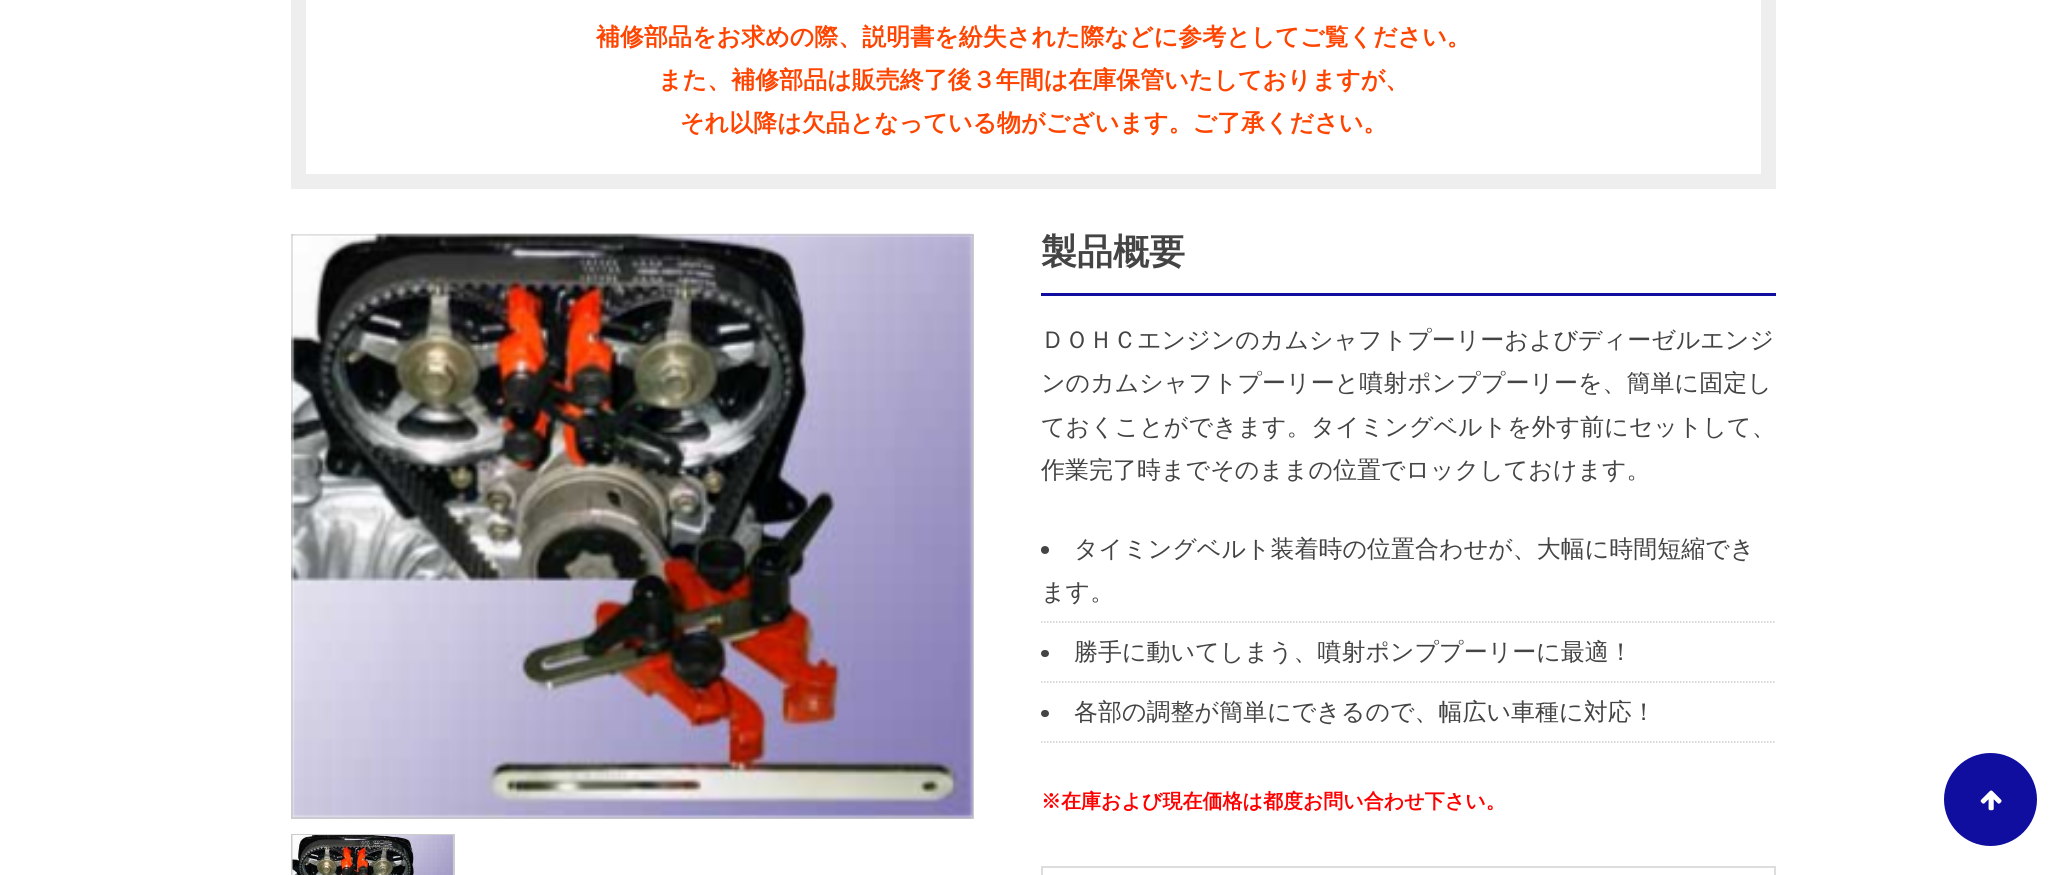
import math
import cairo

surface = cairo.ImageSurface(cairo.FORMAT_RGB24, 2066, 875)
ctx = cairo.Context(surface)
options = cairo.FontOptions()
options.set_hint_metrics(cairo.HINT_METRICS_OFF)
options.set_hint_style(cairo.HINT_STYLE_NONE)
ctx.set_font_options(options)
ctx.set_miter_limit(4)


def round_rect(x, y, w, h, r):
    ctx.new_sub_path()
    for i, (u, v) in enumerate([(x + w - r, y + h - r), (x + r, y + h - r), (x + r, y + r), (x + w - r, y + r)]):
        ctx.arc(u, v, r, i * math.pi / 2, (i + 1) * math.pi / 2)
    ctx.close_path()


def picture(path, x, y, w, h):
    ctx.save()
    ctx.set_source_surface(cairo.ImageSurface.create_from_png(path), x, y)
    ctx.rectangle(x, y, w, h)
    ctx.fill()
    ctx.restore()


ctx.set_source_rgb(1, 1, 1)
ctx.paint()
ctx.rectangle(298.5, -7.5, 1470, 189)
ctx.set_source_rgb(0.933, 0.933, 0.933)
ctx.set_line_width(15)
ctx.stroke()
ctx.select_font_face("WenQuanYi Zen Hei", cairo.FONT_SLANT_NORMAL, cairo.FONT_WEIGHT_BOLD)
ctx.set_font_size(24)
ctx.set_source_rgb(1, 0.267, 0)
ctx.move_to(596, 45)
ctx.show_text("補修部品をお求めの際、説明書を紛失された際などに参考としてご覧ください。")
ctx.move_to(658, 88)
ctx.show_text("また、補修部品は販売終了後３年間は在庫保管いたしておりますが、")
ctx.move_to(680, 131)
ctx.show_text("それ以降は欠品となっている物がございます。ご了承ください。")
ctx.rectangle(292, 235, 681, 583)
ctx.set_source_rgb(0.8, 0.8, 0.8)
ctx.set_line_width(2)
ctx.stroke()
picture("img1.png", 291, 233, 683, 586)
ctx.rectangle(292, 835, 162, 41)
ctx.stroke()
picture("img2.png", 292, 835, 161, 40)
ctx.set_source_rgb(0.059, 0.055, 0.624)
ctx.rectangle(1041, 293, 735, 3)
ctx.fill()
ctx.set_font_size(36)
ctx.set_source_rgb(0.267, 0.267, 0.267)
ctx.move_to(1041, 264)
ctx.show_text("製品概要")
ctx.select_font_face("WenQuanYi Zen Hei Medium")
ctx.set_font_size(24)
ctx.move_to(1041, 348)
ctx.show_text("ＤＯＨＣエンジンのカムシャフトプーリーおよびディーゼルエンジ")
ctx.move_to(1041, 391)
ctx.show_text("ンのカムシャフトプーリーと噴射ポンププーリーを、簡単に固定し")
ctx.move_to(1041, 435)
ctx.show_text("ておくことができます。タイミングベルトを外す前にセットして、")
ctx.move_to(1041, 478)
ctx.show_text("作業完了時までそのままの位置でロックしておけます。")
ctx.new_path()
ctx.move_to(1041, 622)
ctx.line_to(1776, 622)
ctx.set_source_rgb(0.8, 0.8, 0.8)
ctx.set_line_width(1.5)
ctx.set_dash([1.5, 1.5])
ctx.stroke()
ctx.set_source_rgb(0.267, 0.267, 0.267)
ctx.arc(1045, 550, 4, 0, 2 * math.pi)
ctx.fill()
ctx.move_to(1074, 557)
ctx.show_text("タイミングベルト装着時の位置合わせが、大幅に時間短縮でき")
ctx.move_to(1041, 600)
ctx.show_text("ます。")
ctx.new_path()
ctx.move_to(1041, 682)
ctx.line_to(1776, 682)
ctx.set_source_rgb(0.8, 0.8, 0.8)
ctx.stroke()
ctx.set_source_rgb(0.267, 0.267, 0.267)
round_rect(1041, 650, 8, 7, 3.5)
ctx.fill()
ctx.move_to(1074, 660)
ctx.show_text("勝手に動いてしまう、噴射ポンププーリーに最適！")
ctx.new_path()
ctx.move_to(1041, 742)
ctx.line_to(1776, 742)
ctx.set_source_rgb(0.8, 0.8, 0.8)
ctx.stroke()
ctx.set_source_rgb(0.267, 0.267, 0.267)
round_rect(1041, 710, 8, 7, 3.5)
ctx.fill()
ctx.move_to(1074, 720)
ctx.show_text("各部の調整が簡単にできるので、幅広い車種に対応！")
ctx.select_font_face("WenQuanYi Zen Hei", cairo.FONT_SLANT_NORMAL, cairo.FONT_WEIGHT_BOLD)
ctx.set_font_size(20)
ctx.set_source_rgb(1, 0, 0)
ctx.move_to(1041, 808)
ctx.show_text("※在庫および現在価格は都度お問い合わせ下さい。")
ctx.rectangle(1042, 867, 733, 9)
ctx.set_source_rgb(0.867, 0.867, 0.867)
ctx.set_line_width(2)
ctx.set_dash([])
ctx.stroke()
ctx.set_source_rgb(0.059, 0.055, 0.624)
ctx.arc(1990.5, 799.5, 45.5, 0, 2 * math.pi)
ctx.fill_preserve()
ctx.stroke()
picture("img3.png", 1980, 790, 22, 21)
surface.write_to_png("page.png")
